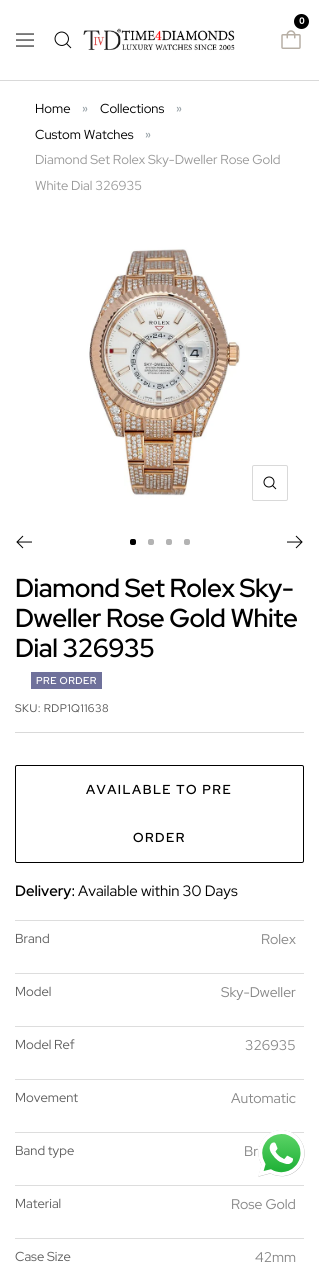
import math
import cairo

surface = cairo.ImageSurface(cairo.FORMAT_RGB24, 319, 1271)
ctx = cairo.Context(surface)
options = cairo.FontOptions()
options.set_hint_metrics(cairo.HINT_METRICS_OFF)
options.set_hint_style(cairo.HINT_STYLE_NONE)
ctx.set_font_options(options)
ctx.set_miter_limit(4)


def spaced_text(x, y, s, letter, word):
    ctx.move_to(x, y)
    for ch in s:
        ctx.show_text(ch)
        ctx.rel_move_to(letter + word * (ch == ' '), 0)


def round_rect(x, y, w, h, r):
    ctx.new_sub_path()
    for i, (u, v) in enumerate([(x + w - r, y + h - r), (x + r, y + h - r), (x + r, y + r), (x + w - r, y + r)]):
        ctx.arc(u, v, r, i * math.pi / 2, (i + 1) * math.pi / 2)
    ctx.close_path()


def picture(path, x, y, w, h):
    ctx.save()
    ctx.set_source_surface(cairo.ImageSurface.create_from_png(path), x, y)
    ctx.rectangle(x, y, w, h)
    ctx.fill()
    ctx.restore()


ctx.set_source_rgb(1, 1, 1)
ctx.paint()
ctx.set_source_rgb(0.851, 0.851, 0.851)
ctx.rectangle(0, 80, 319, 1)
ctx.fill()
ctx.set_source_rgb(0, 0, 0)
ctx.arc(301.5, 21.5, 7.5, 0, 2 * math.pi)
ctx.fill()
ctx.select_font_face("Poppins SemiBold")
ctx.set_font_size(9)
ctx.set_source_rgb(1, 1, 1)
ctx.move_to(299, 24)
ctx.show_text("0")
picture("img1.png", 281, 30, 20, 19)
ctx.new_path()
ctx.move_to(16, 34)
ctx.line_to(34, 34)
ctx.move_to(16, 46)
ctx.line_to(34, 46)
ctx.close_path()
ctx.move_to(16, 40)
ctx.line_to(34, 40)
ctx.close_path()
ctx.move_to(66.5, 43.5)
ctx.curve_to(72.5, 37, 63.5, 28, 57, 34)
ctx.curve_to(51, 40.5, 60, 49.5, 66.5, 43.5)
ctx.close_path()
ctx.move_to(66.5, 43.5)
ctx.line_to(71, 48)
ctx.set_source_rgb(0, 0, 0)
ctx.set_line_width(1)
ctx.stroke()
picture("img2.png", 83, 28, 152, 23)
ctx.select_font_face("Red Hat Display")
ctx.set_font_size(13)
ctx.move_to(35, 113)
ctx.show_text("Home")
ctx.select_font_face("Poppins")
ctx.set_source_rgb(0.584, 0.624, 0.647)
ctx.move_to(82, 113)
ctx.show_text("»")
ctx.select_font_face("Red Hat Display")
ctx.set_source_rgb(0, 0, 0)
ctx.move_to(100, 113)
ctx.show_text("Collections")
ctx.select_font_face("Poppins")
ctx.set_source_rgb(0.584, 0.624, 0.647)
ctx.move_to(176, 113)
ctx.show_text("»")
ctx.select_font_face("Red Hat Display")
ctx.set_source_rgb(0, 0, 0)
ctx.move_to(35, 139)
ctx.show_text("Custom Watches")
ctx.select_font_face("Poppins")
ctx.set_source_rgb(0.584, 0.624, 0.647)
ctx.move_to(145, 139)
ctx.show_text("»")
ctx.select_font_face("Red Hat Display")
ctx.set_source_rgb(0.6, 0.6, 0.6)
ctx.move_to(35, 164)
ctx.show_text("Diamond Set Rolex Sky-Dweller Rose Gold")
ctx.move_to(35, 190)
ctx.show_text("White Dial 326935")
picture("img3.png", 15, 228, 289, 289)
round_rect(252.5, 465.5, 35, 35, 1.5)
ctx.set_source_rgb(0.851, 0.851, 0.851)
ctx.stroke()
picture("img4.png", 263, 476, 14, 14)
ctx.new_path()
ctx.move_to(32, 542)
ctx.line_to(17, 542)
ctx.move_to(23, 536)
ctx.line_to(17, 542)
ctx.line_to(23, 548)
ctx.set_source_rgb(0, 0, 0)
ctx.stroke()
round_rect(130, 539, 6, 6, 2)
ctx.fill()
ctx.set_source_rgb(0.702, 0.702, 0.702)
round_rect(148, 539, 6, 6, 2)
ctx.fill()
round_rect(166, 539, 6, 6, 2)
ctx.fill()
round_rect(184, 539, 6, 6, 2)
ctx.fill()
ctx.new_path()
ctx.move_to(287, 542)
ctx.line_to(302, 542)
ctx.move_to(296, 536)
ctx.line_to(302, 542)
ctx.line_to(296, 548)
ctx.set_source_rgb(0, 0, 0)
ctx.stroke()
ctx.set_source_rgb(0.851, 0.851, 0.851)
ctx.rectangle(15, 732, 289, 1)
ctx.fill()
ctx.select_font_face("Red Hat Display SemiBold")
ctx.set_font_size(26)
ctx.set_source_rgb(0, 0, 0)
spaced_text(15, 597, "Diamond Set Rolex Sky-", -0.4, 0)
spaced_text(15, 627, "Dweller Rose Gold White", -0.4, 0)
spaced_text(15, 657, "Dial 326935", -0.4, 0)
ctx.set_source_rgb(0.435, 0.443, 0.608)
ctx.rectangle(31, 672, 71, 17)
ctx.fill()
ctx.set_font_size(10)
ctx.set_source_rgb(1, 1, 1)
spaced_text(36, 684, "PRE ORDER", 0.5, 0)
ctx.select_font_face("Red Hat Display")
ctx.set_font_size(11)
ctx.set_source_rgb(0.302, 0.302, 0.302)
spaced_text(15, 712, "SKU: RDP1Q11638", 0.5, 0)
round_rect(15.5, 765.5, 288, 97, 1.5)
ctx.set_source_rgb(0, 0, 0)
ctx.stroke()
ctx.select_font_face("Red Hat Display SemiBold")
ctx.set_font_size(13)
spaced_text(86, 794, "AVAILABLE TO PRE", 1.5, 0)
spaced_text(133, 842, "ORDER", 1.5, 0)
ctx.set_font_size(15)
ctx.move_to(15, 896)
ctx.show_text("Delivery:")
ctx.select_font_face("Red Hat Display")
ctx.move_to(78, 896)
ctx.show_text("Available within 30 Days")
ctx.set_source_rgb(0.867, 0.867, 0.867)
ctx.rectangle(15, 920, 289, 1)
ctx.fill()
ctx.set_font_size(13)
ctx.set_source_rgb(0.373, 0.373, 0.373)
ctx.move_to(15, 943)
ctx.show_text("Brand")
ctx.set_font_size(14)
ctx.set_source_rgb(0.529, 0.529, 0.529)
ctx.move_to(261, 944)
ctx.show_text("Rolex")
ctx.set_source_rgb(0.867, 0.867, 0.867)
ctx.rectangle(15, 973, 289, 1)
ctx.fill()
ctx.set_font_size(13)
ctx.set_source_rgb(0.373, 0.373, 0.373)
ctx.move_to(15, 996)
ctx.show_text("Model")
ctx.set_font_size(14)
ctx.set_source_rgb(0.529, 0.529, 0.529)
ctx.move_to(221, 997)
ctx.show_text("Sky-Dweller")
ctx.set_source_rgb(0.867, 0.867, 0.867)
ctx.rectangle(15, 1026, 289, 1)
ctx.fill()
ctx.set_font_size(13)
ctx.set_source_rgb(0.373, 0.373, 0.373)
ctx.move_to(15, 1049)
ctx.show_text("Model Ref")
ctx.set_font_size(14)
ctx.set_source_rgb(0.529, 0.529, 0.529)
ctx.move_to(245, 1050)
ctx.show_text("326935")
ctx.set_source_rgb(0.867, 0.867, 0.867)
ctx.rectangle(15, 1079, 289, 1)
ctx.fill()
ctx.set_font_size(13)
ctx.set_source_rgb(0.373, 0.373, 0.373)
ctx.move_to(15, 1102)
ctx.show_text("Movement")
ctx.set_font_size(14)
ctx.set_source_rgb(0.529, 0.529, 0.529)
ctx.move_to(231, 1103)
ctx.show_text("Automatic")
ctx.set_source_rgb(0.867, 0.867, 0.867)
ctx.rectangle(15, 1132, 289, 1)
ctx.fill()
ctx.set_font_size(13)
ctx.set_source_rgb(0.373, 0.373, 0.373)
ctx.move_to(15, 1155)
ctx.show_text("Band type")
ctx.set_font_size(14)
ctx.set_source_rgb(0.529, 0.529, 0.529)
ctx.move_to(244, 1156)
ctx.show_text("Br")
ctx.set_source_rgb(0.867, 0.867, 0.867)
ctx.rectangle(15, 1185, 289, 1)
ctx.fill()
ctx.set_font_size(13)
ctx.set_source_rgb(0.373, 0.373, 0.373)
ctx.move_to(15, 1208)
ctx.show_text("Material")
ctx.set_font_size(14)
ctx.set_source_rgb(0.529, 0.529, 0.529)
ctx.move_to(231, 1209)
ctx.show_text("Rose Gold")
ctx.set_source_rgb(0.867, 0.867, 0.867)
ctx.rectangle(15, 1238, 289, 1)
ctx.fill()
ctx.set_font_size(13)
ctx.set_source_rgb(0.373, 0.373, 0.373)
ctx.move_to(15, 1261)
ctx.show_text("Case Size")
ctx.set_font_size(14)
ctx.set_source_rgb(0.529, 0.529, 0.529)
ctx.move_to(255, 1262)
ctx.show_text("42mm")
picture("img5.png", 258, 1130, 47, 47)
surface.write_to_png("page.png")
